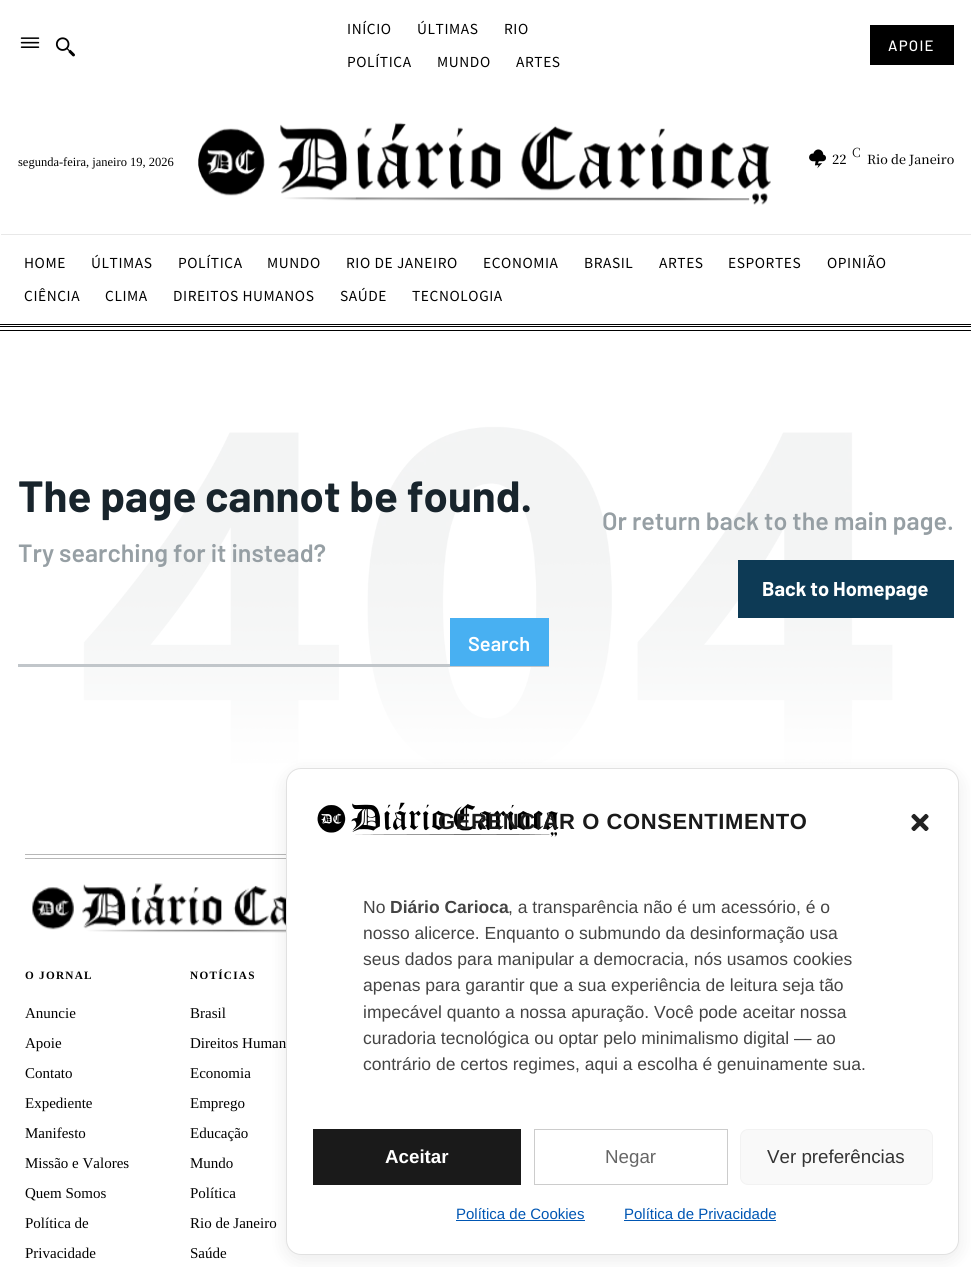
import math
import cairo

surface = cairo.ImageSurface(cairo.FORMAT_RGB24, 971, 1267)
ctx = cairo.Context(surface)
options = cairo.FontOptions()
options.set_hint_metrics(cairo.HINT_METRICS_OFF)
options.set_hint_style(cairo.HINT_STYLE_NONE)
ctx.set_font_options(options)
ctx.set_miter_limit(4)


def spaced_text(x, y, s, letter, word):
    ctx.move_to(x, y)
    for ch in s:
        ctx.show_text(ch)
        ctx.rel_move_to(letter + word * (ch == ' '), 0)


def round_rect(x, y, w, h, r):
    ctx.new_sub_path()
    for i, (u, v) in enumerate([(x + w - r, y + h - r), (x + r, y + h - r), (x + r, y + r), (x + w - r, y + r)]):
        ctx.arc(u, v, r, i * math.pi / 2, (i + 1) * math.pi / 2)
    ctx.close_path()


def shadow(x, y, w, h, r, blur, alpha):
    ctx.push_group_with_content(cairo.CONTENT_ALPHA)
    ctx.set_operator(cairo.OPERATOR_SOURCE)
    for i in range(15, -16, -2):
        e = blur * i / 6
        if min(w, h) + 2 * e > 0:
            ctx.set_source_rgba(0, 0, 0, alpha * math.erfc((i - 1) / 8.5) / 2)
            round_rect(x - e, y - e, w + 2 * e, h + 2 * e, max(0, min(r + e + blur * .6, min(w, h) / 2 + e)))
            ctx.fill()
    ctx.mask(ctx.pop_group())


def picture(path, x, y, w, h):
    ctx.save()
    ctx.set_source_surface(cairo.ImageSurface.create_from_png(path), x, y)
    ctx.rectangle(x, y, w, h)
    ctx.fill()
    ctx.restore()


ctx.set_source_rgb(1, 1, 1)
ctx.paint()
picture("img1.png", 20, 37, 20, 11)
picture("img2.png", 55, 37, 20, 20)
ctx.select_font_face("Noto Sans JP")
ctx.set_font_size(13.75)
ctx.set_source_rgb(0, 0, 0)
spaced_text(347, 34, "INÍCIO", 0.6, 0)
spaced_text(417, 34, "ÚLTIMAS", 0.6, 0)
spaced_text(504, 34, "RIO", 0.6, 0)
spaced_text(347, 67, "POLÍTICA", 0.6, 0)
spaced_text(437, 67, "MUNDO", 0.6, 0)
spaced_text(516, 67, "ARTES", 0.6, 0)
ctx.rectangle(870, 25, 84, 40)
ctx.fill()
ctx.select_font_face("Barlow Medium")
ctx.set_font_size(15)
ctx.set_source_rgb(1, 1, 1)
spaced_text(888, 51, "APOIE", 1.25, 0)
ctx.select_font_face("Liberation Serif")
ctx.set_font_size(12.5)
ctx.set_source_rgb(0, 0, 0)
ctx.move_to(18, 166)
ctx.show_text("segunda-feira, janeiro 19, 2026")
picture("img3.png", 198, 122, 573, 83)
picture("img4.png", 809, 149, 17, 20)
ctx.select_font_face("Noto Serif JP Light")
ctx.move_to(852, 157)
ctx.show_text("C")
ctx.select_font_face("Noto Serif JP SemiBold")
ctx.move_to(832, 164)
ctx.show_text("22")
ctx.select_font_face("Noto Serif JP Medium")
ctx.move_to(867, 164)
ctx.show_text("Rio de Janeiro")
ctx.set_source_rgb(0.91, 0.91, 0.91)
ctx.rectangle(1, 234, 970, 1)
ctx.fill()
ctx.select_font_face("Noto Sans JP")
ctx.set_font_size(13.75)
ctx.set_source_rgb(0, 0, 0)
spaced_text(24, 268, "HOME", 0.6, 0)
spaced_text(91, 268, "ÚLTIMAS", 0.6, 0)
spaced_text(178, 268, "POLÍTICA", 0.6, 0)
spaced_text(267, 268, "MUNDO", 0.6, 0)
spaced_text(346, 268, "RIO DE JANEIRO", 0.6, 0)
spaced_text(483, 268, "ECONOMIA", 0.6, 0)
spaced_text(584, 268, "BRASIL", 0.6, 0)
spaced_text(659, 268, "ARTES", 0.6, 0)
spaced_text(728, 268, "ESPORTES", 0.6, 0)
spaced_text(827, 268, "OPINIÃO", 0.6, 0)
spaced_text(24, 301, "CIÊNCIA", 0.6, 0)
spaced_text(105, 301, "CLIMA", 0.6, 0)
spaced_text(173, 301, "DIREITOS HUMANOS", 0.6, 0)
spaced_text(340, 301, "SAÚDE", 0.6, 0)
spaced_text(412, 301, "TECNOLOGIA", 0.6, 0)
ctx.rectangle(0, 324, 971, 1)
ctx.fill()
ctx.rectangle(0, 330, 971, 1)
ctx.fill()
ctx.rectangle(0, 326, 971, 1)
ctx.fill()
picture("img5.png", 83, 426, 810, 343)
ctx.select_font_face("Barlow", cairo.FONT_SLANT_NORMAL, cairo.FONT_WEIGHT_BOLD)
ctx.set_font_size(43.75)
ctx.set_source_rgb(0.094, 0.141, 0.173)
ctx.move_to(18, 512)
ctx.show_text("The page cannot be found.")
ctx.select_font_face("Barlow SemiBold")
ctx.set_font_size(25)
ctx.set_source_rgb(0.588, 0.624, 0.643)
ctx.move_to(18, 562)
ctx.show_text("Try searching for it instead?")
ctx.set_source_rgb(0.757, 0.776, 0.792)
ctx.rectangle(18, 664, 531, 3)
ctx.fill()
ctx.set_source_rgb(0.282, 0.69, 0.949)
ctx.rectangle(450, 618, 99, 48)
ctx.fill()
ctx.set_font_size(20)
ctx.set_source_rgb(1, 1, 1)
ctx.move_to(468, 651)
ctx.show_text("Search")
ctx.set_font_size(25)
ctx.set_source_rgb(0.588, 0.624, 0.643)
ctx.move_to(602, 530)
ctx.show_text("Or return back to the main page.")
ctx.set_source_rgb(0.051, 0.227, 0.333)
ctx.rectangle(738, 560, 216, 58)
ctx.fill()
ctx.select_font_face("Barlow", cairo.FONT_SLANT_NORMAL, cairo.FONT_WEIGHT_BOLD)
ctx.set_font_size(20)
ctx.set_source_rgb(1, 1, 1)
ctx.move_to(762, 596)
ctx.show_text("Back to Homepage")
ctx.set_source_rgb(0.718, 0.718, 0.718)
ctx.rectangle(25, 854, 261, 1)
ctx.fill()
ctx.rectangle(25, 858, 261, 1)
ctx.fill()
picture("img6.png", 32, 883, 254, 50)
ctx.select_font_face("Liberation Serif", cairo.FONT_SLANT_NORMAL, cairo.FONT_WEIGHT_BOLD)
ctx.set_font_size(11.25)
ctx.set_source_rgb(0, 0, 0)
spaced_text(25, 979, "O JORNAL", 1.25, 0)
ctx.select_font_face("Liberation Serif")
ctx.set_font_size(15)
ctx.move_to(25, 1018)
ctx.show_text("Anuncie")
ctx.move_to(25, 1048)
ctx.show_text("Apoie")
ctx.move_to(25, 1078)
ctx.show_text("Contato")
ctx.move_to(25, 1108)
ctx.show_text("Expediente")
ctx.move_to(25, 1138)
ctx.show_text("Manifesto")
ctx.move_to(25, 1168)
ctx.show_text("Missão e Valores")
ctx.move_to(25, 1198)
ctx.show_text("Quem Somos")
ctx.move_to(25, 1228)
ctx.show_text("Política de")
ctx.move_to(25, 1258)
ctx.show_text("Privacidade")
ctx.select_font_face("Liberation Serif", cairo.FONT_SLANT_NORMAL, cairo.FONT_WEIGHT_BOLD)
ctx.set_font_size(11.25)
spaced_text(190, 979, "NOTÍCIAS", 1.25, 0)
ctx.select_font_face("Liberation Serif")
ctx.set_font_size(15)
ctx.move_to(190, 1018)
ctx.show_text("Brasil")
ctx.move_to(190, 1048)
ctx.show_text("Direitos Human")
ctx.move_to(190, 1078)
ctx.show_text("Economia")
ctx.move_to(190, 1108)
ctx.show_text("Emprego")
ctx.move_to(190, 1138)
ctx.show_text("Educação")
ctx.move_to(190, 1168)
ctx.show_text("Mundo")
ctx.move_to(190, 1198)
ctx.show_text("Política")
ctx.move_to(190, 1228)
ctx.show_text("Rio de Janeiro")
ctx.move_to(190, 1258)
ctx.show_text("Saúde")
ctx.set_source_rgb(0, 0, 0)
shadow(286, 773, 673, 487, 15, 9.5, 0.08)
ctx.set_source_rgb(1, 1, 1)
round_rect(286.5, 768.5, 672, 486, 14.5)
ctx.fill_preserve()
ctx.set_source_rgb(0.882, 0.882, 0.882)
ctx.set_line_width(1)
ctx.stroke()
picture("img7.png", 317, 802, 242, 35)
ctx.select_font_face("Liberation Sans", cairo.FONT_SLANT_NORMAL, cairo.FONT_WEIGHT_BOLD)
ctx.set_font_size(22)
ctx.set_source_rgb(0.102, 0.102, 0.102)
spaced_text(438, 829, "GERENCIAR O CONSENTIMENTO", 0.6, 0)
picture("img8.png", 911, 813, 18, 18)
ctx.select_font_face("Liberation Sans")
ctx.set_font_size(17.5)
ctx.set_source_rgb(0.267, 0.267, 0.267)
ctx.move_to(363, 913)
ctx.show_text("No")
ctx.select_font_face("Liberation Sans", cairo.FONT_SLANT_NORMAL, cairo.FONT_WEIGHT_BOLD)
ctx.move_to(390, 913)
ctx.show_text("Diário Carioca")
ctx.select_font_face("Liberation Sans")
ctx.move_to(508, 913)
ctx.show_text(", a transparência não é um acessório, é o")
ctx.move_to(363, 939)
ctx.show_text("nosso alicerce. Enquanto o submundo da desinformação usa")
ctx.move_to(363, 965)
ctx.show_text("seus dados para manipular a democracia, nós usamos cookies")
ctx.move_to(363, 991)
ctx.show_text("apenas para garantir que a sua experiência de leitura seja tão")
ctx.move_to(363, 1018)
ctx.show_text("impecável quanto a nossa apuração. Você pode aceitar nossa")
ctx.move_to(363, 1044)
ctx.show_text("curadoria tecnológica ou optar pelo minimalismo digital — ao")
ctx.move_to(363, 1070)
ctx.show_text("contrário de certos regimes, aqui a escolha é genuinamente sua.")
ctx.set_source_rgb(0.102, 0.102, 0.102)
ctx.rectangle(313, 1129, 208, 56)
ctx.fill()
ctx.select_font_face("Liberation Sans", cairo.FONT_SLANT_NORMAL, cairo.FONT_WEIGHT_BOLD)
ctx.set_font_size(18.75)
ctx.set_source_rgb(1, 1, 1)
ctx.move_to(385, 1163)
ctx.show_text("Aceitar")
ctx.rectangle(534.5, 1129.5, 193, 55)
ctx.set_source_rgb(0.8, 0.8, 0.8)
ctx.stroke()
ctx.select_font_face("Liberation Sans")
ctx.set_source_rgb(0.4, 0.4, 0.4)
ctx.move_to(605, 1163)
ctx.show_text("Negar")
ctx.set_source_rgb(0.976, 0.976, 0.976)
round_rect(740.5, 1129.5, 192, 55, 7.5)
ctx.fill_preserve()
ctx.set_source_rgb(0.949, 0.949, 0.949)
ctx.stroke()
ctx.set_source_rgb(0.2, 0.2, 0.2)
ctx.move_to(767, 1163)
ctx.show_text("Ver preferências")
ctx.set_font_size(15)
ctx.set_source_rgb(0, 0.337, 0.702)
ctx.move_to(456, 1219)
ctx.show_text("Política de Cookies")
ctx.rectangle(456, 1220, 129, 1)
ctx.fill()
ctx.move_to(624, 1219)
ctx.show_text("Política de Privacidade")
ctx.rectangle(624, 1220, 152, 1)
ctx.fill()
surface.write_to_png("page.png")
